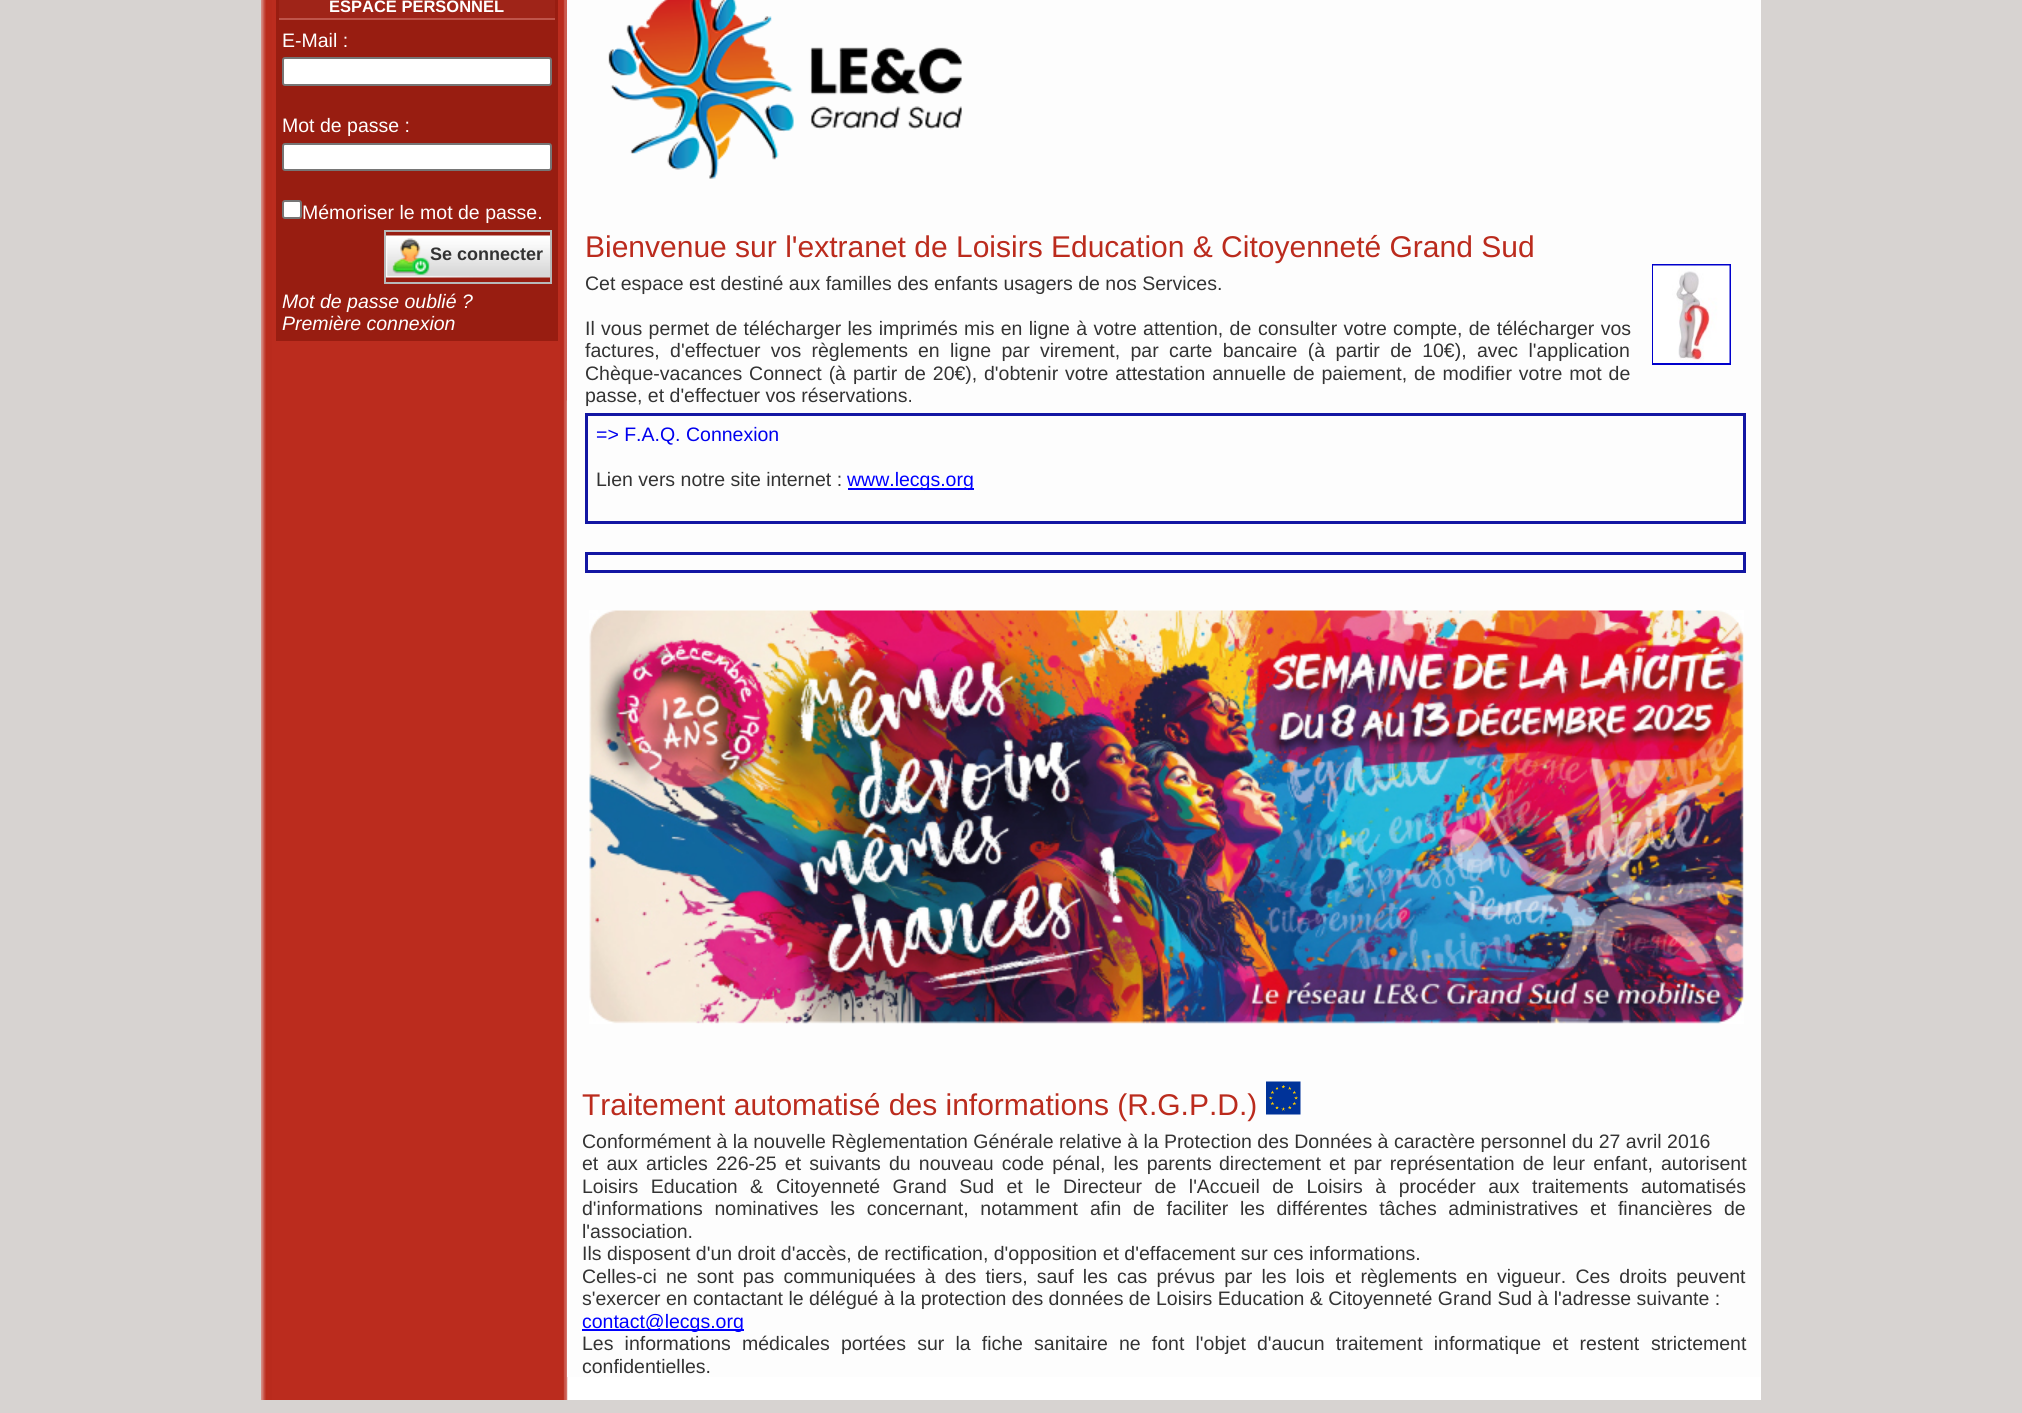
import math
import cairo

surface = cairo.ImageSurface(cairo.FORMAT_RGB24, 2022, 1413)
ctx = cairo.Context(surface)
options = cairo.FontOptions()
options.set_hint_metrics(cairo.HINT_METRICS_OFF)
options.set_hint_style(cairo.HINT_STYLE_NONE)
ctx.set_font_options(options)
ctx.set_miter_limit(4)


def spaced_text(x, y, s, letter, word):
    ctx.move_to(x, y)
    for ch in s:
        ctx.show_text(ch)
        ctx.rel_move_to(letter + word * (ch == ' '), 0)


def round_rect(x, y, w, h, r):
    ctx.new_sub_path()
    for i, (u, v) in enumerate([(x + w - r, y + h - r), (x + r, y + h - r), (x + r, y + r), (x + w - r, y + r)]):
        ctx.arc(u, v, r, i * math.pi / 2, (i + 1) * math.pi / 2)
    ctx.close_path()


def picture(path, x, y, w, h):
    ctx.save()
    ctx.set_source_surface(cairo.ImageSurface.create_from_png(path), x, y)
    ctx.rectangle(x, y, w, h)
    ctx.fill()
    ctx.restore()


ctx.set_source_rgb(0.843, 0.827, 0.82)
ctx.paint()
ctx.set_source_rgb(1, 1, 1)
ctx.rectangle(568, 1377, 1193, 23)
ctx.fill()
picture("img1.png", 261, 0, 307, 1400)
picture("img2.png", 566, 0, 1, 401)
ctx.set_source_rgb(0.596, 0.114, 0.067)
ctx.rectangle(276, 0, 282, 341)
ctx.fill()
ctx.set_source_rgb(0.624, 0.141, 0.094)
ctx.rectangle(279, 0, 276, 18)
ctx.fill()
ctx.set_source_rgb(0.749, 0.329, 0.29)
ctx.rectangle(279, 18, 276, 2)
ctx.fill()
ctx.select_font_face("Liberation Sans", cairo.FONT_SLANT_NORMAL, cairo.FONT_WEIGHT_BOLD)
ctx.set_font_size(16.5)
ctx.set_source_rgb(1, 1, 1)
ctx.move_to(329, 12)
ctx.show_text("ESPACE PERSONNEL")
ctx.select_font_face("Liberation Sans")
ctx.set_font_size(19.5)
ctx.move_to(282, 47)
ctx.show_text("E-Mail :")
round_rect(283, 58, 268, 27, 2)
ctx.fill_preserve()
ctx.set_source_rgb(0.463, 0.463, 0.463)
ctx.stroke()
ctx.set_source_rgb(1, 1, 1)
ctx.move_to(282, 132)
ctx.show_text("Mot de passe :")
round_rect(283, 144, 268, 26, 2)
ctx.fill_preserve()
ctx.set_source_rgb(0.463, 0.463, 0.463)
ctx.stroke()
ctx.set_source_rgb(1, 1, 1)
round_rect(283, 201, 18, 17, 2)
ctx.fill_preserve()
ctx.set_source_rgb(0.463, 0.463, 0.463)
ctx.stroke()
ctx.set_source_rgb(1, 1, 1)
ctx.move_to(302, 219)
ctx.show_text("Mémoriser le mot de passe.")
picture("img3.png", 386, 235, 164, 43)
ctx.rectangle(385, 231, 166, 52)
ctx.set_source_rgb(0.722, 0.722, 0.722)
ctx.stroke()
ctx.select_font_face("Liberation Sans", cairo.FONT_SLANT_NORMAL, cairo.FONT_WEIGHT_BOLD)
ctx.set_font_size(18)
ctx.set_source_rgb(0.2, 0.2, 0.2)
ctx.move_to(430, 260)
ctx.show_text("Se connecter")
ctx.select_font_face("Liberation Sans", cairo.FONT_SLANT_ITALIC)
ctx.set_font_size(19.5)
ctx.set_source_rgb(1, 1, 1)
ctx.move_to(282, 308)
ctx.show_text("Mot de passe oublié ?")
ctx.move_to(282, 330)
ctx.show_text("Première connexion")
ctx.set_source_rgb(0.992, 0.992, 0.992)
ctx.rectangle(567, 0, 1194, 1377)
ctx.fill()
picture("img4.png", 608, 0, 354, 179)
ctx.select_font_face("Liberation Sans")
ctx.set_font_size(30)
ctx.set_source_rgb(0.733, 0.169, 0.114)
ctx.move_to(585, 257)
ctx.show_text("Bienvenue sur l'extranet de Loisirs Education & Citoyenneté Grand Sud")
ctx.set_font_size(19.5)
ctx.set_source_rgb(0.2, 0.2, 0.2)
ctx.move_to(585, 290)
ctx.show_text("Cet espace est destiné aux familles des enfants usagers de nos Services.")
spaced_text(585, 335, "Il vous permet de télécharger les imprimés mis en ligne à votre attention, de", 0, 0.9)
spaced_text(1258, 335, "consulter votre compte, de télécharger vos", 0, 0.9)
spaced_text(585, 357, "factures, d'effectuer vos règlements", 0, 4.9)
spaced_text(918, 357, "en ligne par virement, par carte bancaire (à partir de 10€), avec l'application", 0, 4.9)
spaced_text(585, 380, "Chèque-vacances Connect (à partir de 20€),", 0, 1.5)
spaced_text(984, 380, "d'obtenir votre attestation annuelle de paiement,", 0, 1.5)
spaced_text(1414, 380, "de modifier votre mot de", 0, 1.5)
ctx.move_to(585, 402)
ctx.show_text("passe, et d'effectuer vos réservations.")
ctx.rectangle(1653, 265, 77, 99)
ctx.set_source_rgb(0, 0, 0.8)
ctx.stroke()
picture("img5.png", 1653, 265, 77, 98)
ctx.rectangle(586.5, 414.5, 1158, 108)
ctx.set_source_rgb(0.078, 0.086, 0.639)
ctx.set_line_width(3)
ctx.stroke()
ctx.set_source_rgb(0, 0, 0.933)
ctx.move_to(596, 441)
ctx.show_text("=> F.A.Q. Connexion")
ctx.set_source_rgb(0.2, 0.2, 0.2)
ctx.move_to(596, 486)
ctx.show_text("Lien vers notre site internet :")
ctx.set_source_rgb(0, 0, 1)
ctx.rectangle(848, 488, 126, 2)
ctx.fill()
ctx.move_to(847, 486)
ctx.show_text("www.lecgs.org")
ctx.rectangle(586.5, 553.5, 1158, 18)
ctx.set_source_rgb(0.078, 0.086, 0.639)
ctx.stroke()
picture("img6.png", 589, 610, 1155, 414)
ctx.set_font_size(30)
ctx.set_source_rgb(0.733, 0.169, 0.114)
ctx.move_to(582, 1115)
ctx.show_text("Traitement automatisé des informations (R.G.P.D.)")
picture("img7.png", 1266, 1081, 35, 34)
ctx.set_font_size(19.5)
ctx.set_source_rgb(0.2, 0.2, 0.2)
ctx.move_to(582, 1148)
ctx.show_text("Conformément à la nouvelle Règlementation Générale relative à la Protection des Données à caractère personnel du 27 avril 2016")
spaced_text(582, 1170, "et aux articles 226-25 et suivants du nouveau code pénal, les parents", 0, 2.75)
spaced_text(1219, 1170, "directement et par représentation de leur enfant, autorisent", 0, 2.75)
spaced_text(582, 1193, "Loisirs Education &", 0, 7.1)
spaced_text(776, 1193, "Citoyenneté Grand Sud et le Directeur de l'Accueil de Loisirs à procéder aux", 0, 7.1)
spaced_text(1532, 1193, "traitements automatisés", 0, 7.1)
spaced_text(582, 1215, "d'informations nominatives les concernant, notamment", 0, 6.25)
spaced_text(1090, 1215, "afin de faciliter les différentes tâches administratives et financières de", 0, 6.25)
ctx.move_to(582, 1238)
ctx.show_text("l'association.")
ctx.move_to(582, 1260)
ctx.show_text("Ils disposent d'un droit d'accès, de rectification, d'opposition et d'effacement sur ces informations.")
spaced_text(582, 1283, "Celles-ci ne sont pas communiquées à des tiers, sauf les cas prévus par les lois", 0, 3.75)
spaced_text(1335, 1283, "et règlements en vigueur. Ces droits peuvent", 0, 3.75)
ctx.move_to(582, 1305)
ctx.show_text("s'exercer en contactant le délégué à la protection des données de Loisirs Education & Citoyenneté Grand Sud à l'adresse suivante :")
ctx.set_source_rgb(0, 0, 1)
ctx.rectangle(582, 1329, 162, 2)
ctx.fill()
ctx.move_to(582, 1328)
ctx.show_text("contact@lecgs.org")
ctx.set_source_rgb(0.2, 0.2, 0.2)
spaced_text(582, 1350, "Les informations médicales portées sur la fiche sanitaire ne font l'objet d'aucun traitement informatique et restent", 0, 5.75)
ctx.move_to(1651, 1350)
ctx.show_text("strictement")
ctx.move_to(582, 1373)
ctx.show_text("confidentielles.")
surface.write_to_png("page.png")
